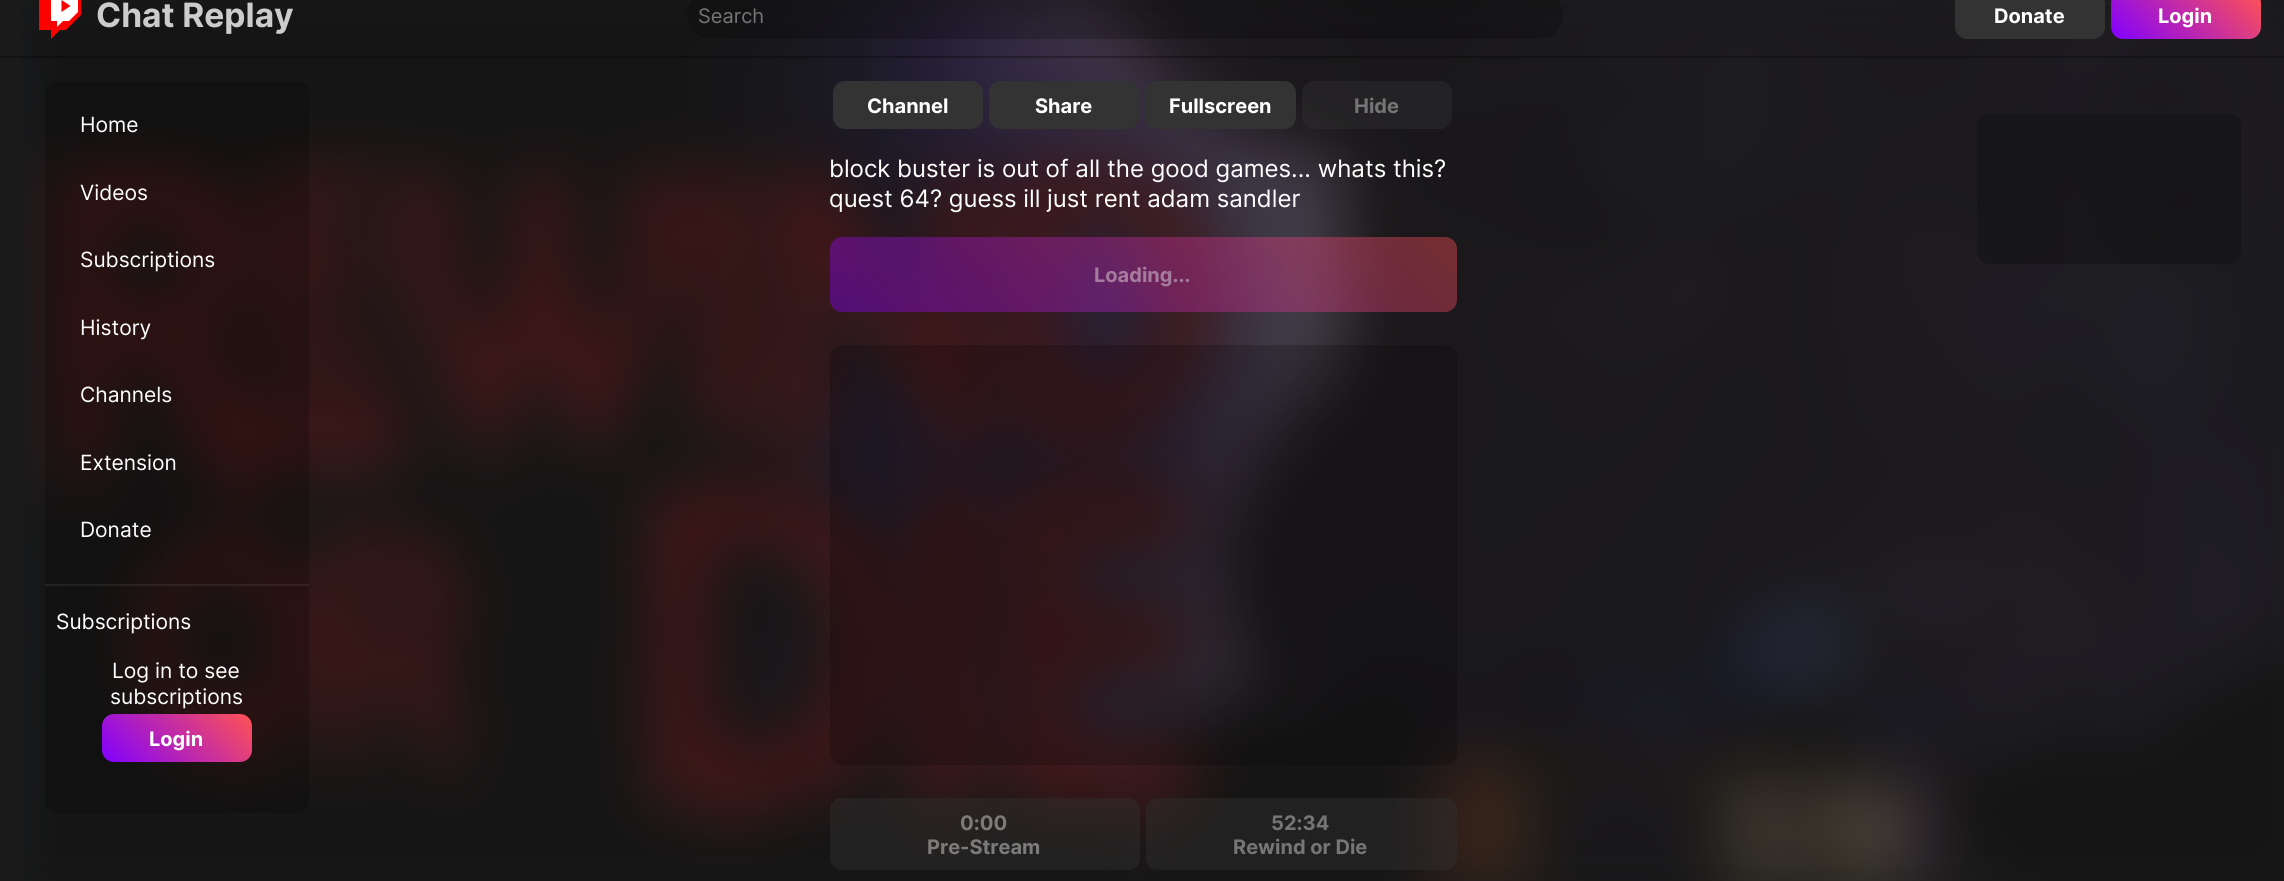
import math
import cairo

surface = cairo.ImageSurface(cairo.FORMAT_RGB24, 2284, 881)
ctx = cairo.Context(surface)
options = cairo.FontOptions()
options.set_hint_metrics(cairo.HINT_METRICS_OFF)
options.set_hint_style(cairo.HINT_STYLE_NONE)
ctx.set_font_options(options)
ctx.set_miter_limit(4)


def round_rect(x, y, w, h, r):
    ctx.new_sub_path()
    for i, (u, v) in enumerate([(x + w - r, y + h - r), (x + r, y + h - r), (x + r, y + r), (x + w - r, y + r)]):
        ctx.arc(u, v, r, i * math.pi / 2, (i + 1) * math.pi / 2)
    ctx.close_path()


def picture(path, x, y, w, h):
    ctx.save()
    ctx.set_source_surface(cairo.ImageSurface.create_from_png(path), x, y)
    ctx.rectangle(x, y, w, h)
    ctx.fill()
    ctx.restore()


ctx.set_source_rgb(0.102, 0.102, 0.102)
ctx.paint()
picture("img2.png", 22, 0, 2262, 881)
ctx.set_source_rgba(0, 0, 0, 0.3)
ctx.rectangle(0, 56, 2284, 2)
ctx.fill()
picture("img1.png", 39, 0, 42, 39)
ctx.select_font_face("Inter", cairo.FONT_SLANT_NORMAL, cairo.FONT_WEIGHT_BOLD)
ctx.set_font_size(33.5)
ctx.set_source_rgb(0.8, 0.8, 0.8)
ctx.move_to(96, 27)
ctx.show_text("Chat Replay")
ctx.set_source_rgba(0, 0, 0, 0.2)
round_rect(687, -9, 876, 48, 24)
ctx.fill()
ctx.select_font_face("Inter")
ctx.set_font_size(20)
ctx.set_source_rgb(0.459, 0.459, 0.459)
ctx.move_to(698, 23)
ctx.show_text("Search")
ctx.set_source_rgb(0.2, 0.2, 0.2)
round_rect(1955, -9, 150, 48, 12)
ctx.fill()
ctx.select_font_face("Inter", cairo.FONT_SLANT_NORMAL, cairo.FONT_WEIGHT_BOLD)
ctx.set_source_rgb(1, 1, 1)
ctx.move_to(1994, 23)
ctx.show_text("Donate")
gradient = cairo.LinearGradient(2136, 65, 2235, -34)
gradient.add_color_stop_rgba(0, 0.502, 0, 1, 1)
gradient.add_color_stop_rgba(1, 1, 0.325, 0.325, 1)
ctx.set_source(gradient)
round_rect(2111, -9, 150, 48, 12)
ctx.fill()
ctx.set_source_rgb(1, 1, 1)
ctx.move_to(2158, 23)
ctx.show_text("Login")
ctx.set_source_rgba(0, 0, 0, 0.2)
round_rect(45, 81, 264, 732, 12)
ctx.fill()
ctx.select_font_face("Inter")
ctx.set_font_size(21)
ctx.set_source_rgb(1, 1, 1)
ctx.move_to(80, 132)
ctx.show_text("Home")
ctx.move_to(80, 200)
ctx.show_text("Videos")
ctx.move_to(80, 267)
ctx.show_text("Subscriptions")
ctx.move_to(80, 335)
ctx.show_text("History")
ctx.move_to(80, 402)
ctx.show_text("Channels")
ctx.move_to(80, 470)
ctx.show_text("Extension")
ctx.move_to(80, 537)
ctx.show_text("Donate")
ctx.set_source_rgba(1, 1, 1, 0.07)
ctx.rectangle(45, 584, 264, 2)
ctx.fill()
ctx.set_source_rgb(1, 1, 1)
ctx.move_to(56, 629)
ctx.show_text("Subscriptions")
ctx.move_to(112, 678)
ctx.show_text("Log in to see")
ctx.move_to(110, 704)
ctx.show_text("subscriptions")
gradient = cairo.LinearGradient(128, 788, 227, 689)
gradient.add_color_stop_rgba(0, 0.502, 0, 1, 1)
gradient.add_color_stop_rgba(1, 1, 0.325, 0.325, 1)
ctx.set_source(gradient)
round_rect(102, 714, 150, 48, 12)
ctx.fill()
ctx.select_font_face("Inter", cairo.FONT_SLANT_NORMAL, cairo.FONT_WEIGHT_BOLD)
ctx.set_font_size(20)
ctx.set_source_rgb(1, 1, 1)
ctx.move_to(149, 746)
ctx.show_text("Login")
ctx.set_source_rgb(0.2, 0.2, 0.2)
round_rect(833, 81, 150, 48, 12)
ctx.fill()
ctx.set_source_rgb(1, 1, 1)
ctx.move_to(867, 113)
ctx.show_text("Channel")
ctx.set_source_rgb(0.2, 0.2, 0.2)
round_rect(989, 81, 150, 48, 12)
ctx.fill()
ctx.set_source_rgb(1, 1, 1)
ctx.move_to(1035, 113)
ctx.show_text("Share")
ctx.set_source_rgb(0.2, 0.2, 0.2)
round_rect(1145, 81, 151, 48, 12)
ctx.fill()
ctx.set_source_rgb(1, 1, 1)
ctx.move_to(1169, 113)
ctx.show_text("Fullscreen")
ctx.set_source_rgba(0.2, 0.2, 0.2, 0.4)
round_rect(1302, 81, 150, 48, 12)
ctx.fill()
ctx.set_source_rgb(0.459, 0.459, 0.459)
ctx.move_to(1354, 113)
ctx.show_text("Hide")
ctx.select_font_face("Inter")
ctx.set_font_size(24)
ctx.set_source_rgb(1, 1, 1)
ctx.move_to(829, 177)
ctx.show_text("block buster is out of all the good games... whats this?")
ctx.move_to(829, 207)
ctx.show_text("quest 64? guess ill just rent adam sandler")
gradient = cairo.LinearGradient(968, 450, 1319, 99)
gradient.add_color_stop_rgba(0, 0.502, 0, 1, 0.4)
gradient.add_color_stop_rgba(1, 1, 0.325, 0.325, 0.4)
ctx.set_source(gradient)
round_rect(830, 237, 627, 75, 12)
ctx.fill()
ctx.select_font_face("Inter", cairo.FONT_SLANT_NORMAL, cairo.FONT_WEIGHT_BOLD)
ctx.set_font_size(20)
ctx.set_source_rgb(0.647, 0.482, 0.62)
ctx.move_to(1094, 282)
ctx.show_text("Loading...")
ctx.set_source_rgba(0, 0, 0, 0.2)
round_rect(830, 345, 627, 420, 12)
ctx.fill()
ctx.set_source_rgba(0.2, 0.2, 0.2, 0.4)
round_rect(830, 798, 310, 72, 12)
ctx.fill()
ctx.set_source_rgb(0.49, 0.478, 0.478)
ctx.move_to(960, 830)
ctx.show_text("0:00")
ctx.move_to(927, 854)
ctx.show_text("Pre-Stream")
ctx.set_source_rgba(0.2, 0.2, 0.2, 0.4)
round_rect(1146, 798, 311, 72, 12)
ctx.fill()
ctx.set_source_rgb(0.459, 0.459, 0.459)
ctx.move_to(1271, 830)
ctx.show_text("52:34")
ctx.move_to(1233, 854)
ctx.show_text("Rewind or Die")
ctx.set_source_rgba(0, 0, 0, 0.2)
round_rect(1977, 114, 264, 150, 12)
ctx.fill()
surface.write_to_png("page.png")
